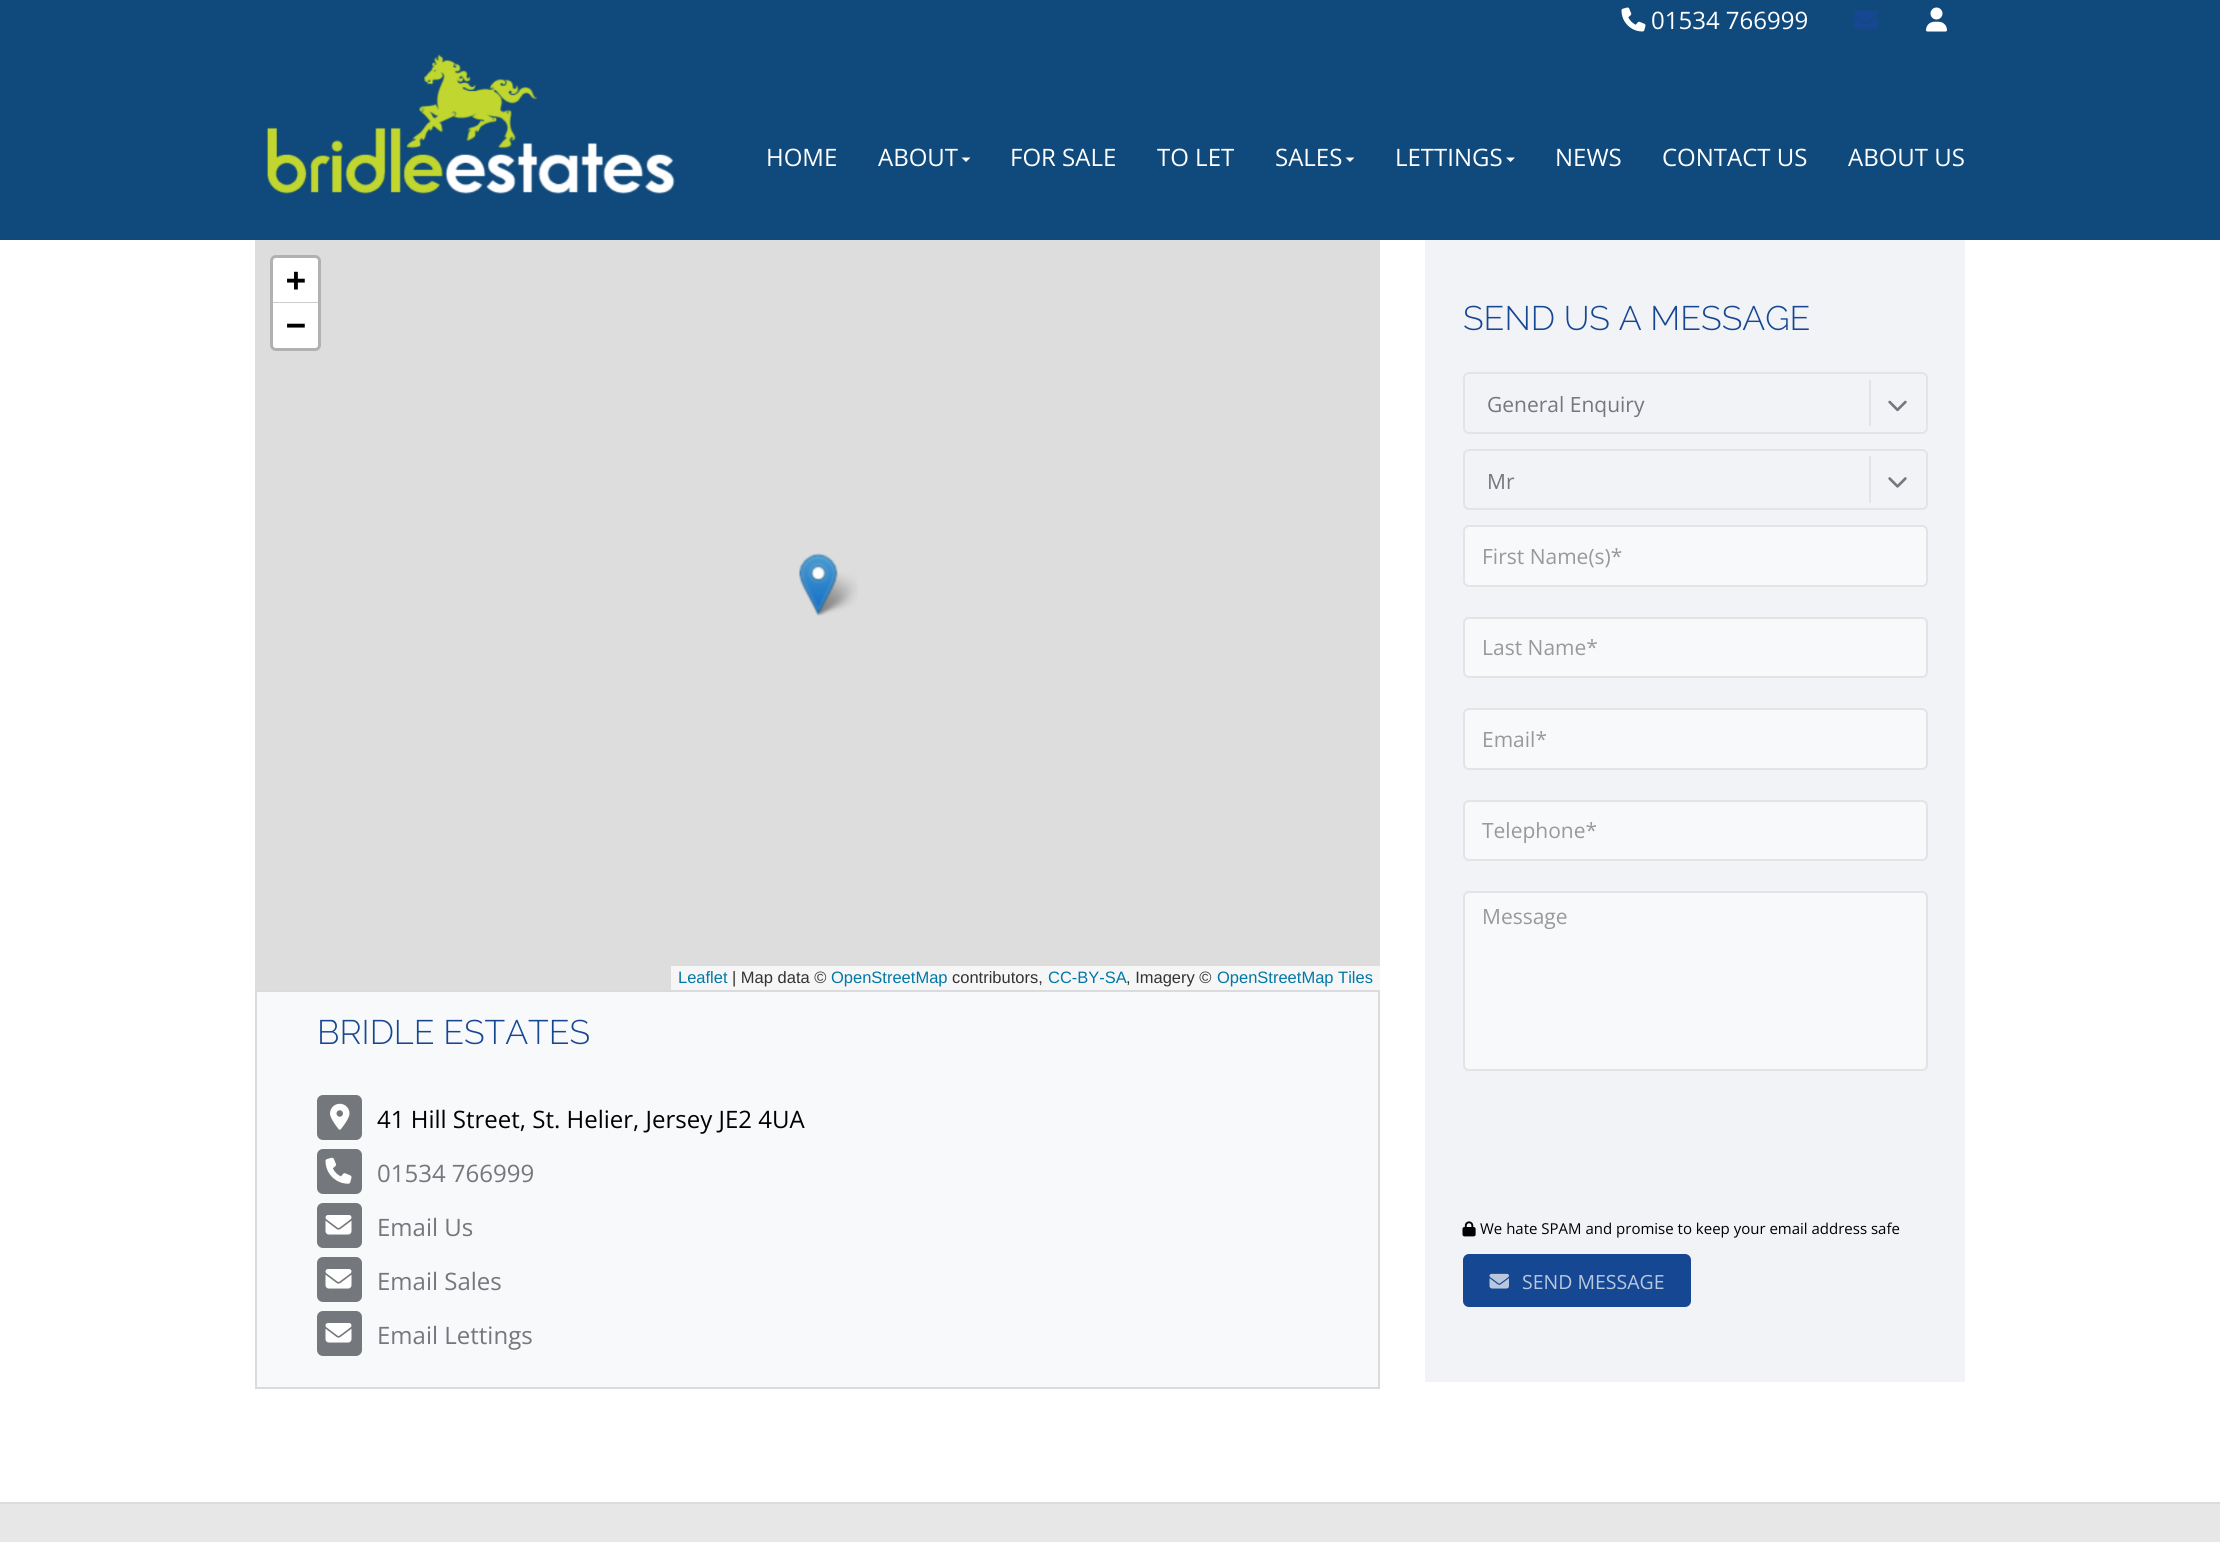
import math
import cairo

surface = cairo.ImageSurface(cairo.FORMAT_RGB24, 2220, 1542)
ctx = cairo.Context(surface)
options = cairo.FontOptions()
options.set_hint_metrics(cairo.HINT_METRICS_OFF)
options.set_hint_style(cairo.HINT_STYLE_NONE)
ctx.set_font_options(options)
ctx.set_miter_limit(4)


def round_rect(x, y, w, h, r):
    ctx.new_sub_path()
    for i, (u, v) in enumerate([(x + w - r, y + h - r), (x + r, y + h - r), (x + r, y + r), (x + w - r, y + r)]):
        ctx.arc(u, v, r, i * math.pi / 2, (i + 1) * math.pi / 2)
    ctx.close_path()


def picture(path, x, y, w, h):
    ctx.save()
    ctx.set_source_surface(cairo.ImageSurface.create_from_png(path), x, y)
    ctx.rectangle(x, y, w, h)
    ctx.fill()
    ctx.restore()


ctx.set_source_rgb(1, 1, 1)
ctx.paint()
ctx.set_source_rgb(0.063, 0.29, 0.486)
ctx.rectangle(0, 0, 2220, 240)
ctx.fill()
picture("img1.png", 1621, 7, 25, 25)
ctx.select_font_face("Open Sans")
ctx.set_font_size(24)
ctx.set_source_rgb(1, 1, 1)
ctx.move_to(1651, 29)
ctx.show_text("01534 766999")
picture("img2.png", 1854, 10, 24, 19)
picture("img3.png", 1926, 7, 21, 25)
picture("img4.png", 267, 54, 408, 140)
ctx.move_to(766, 166)
ctx.show_text("HOME")
ctx.move_to(878, 166)
ctx.show_text("ABOUT")
ctx.new_path()
ctx.move_to(961.5, 157.5)
ctx.line_to(970.5, 157.5)
ctx.line_to(966, 162)
ctx.close_path()
ctx.fill()
ctx.move_to(1010, 166)
ctx.show_text("FOR SALE")
ctx.move_to(1157, 166)
ctx.show_text("TO LET")
ctx.move_to(1275, 166)
ctx.show_text("SALES")
ctx.new_path()
ctx.move_to(1345.5, 157.5)
ctx.line_to(1354.5, 157.5)
ctx.line_to(1350, 162)
ctx.close_path()
ctx.fill()
ctx.move_to(1395, 166)
ctx.show_text("LETTINGS")
ctx.new_path()
ctx.move_to(1506, 157.5)
ctx.line_to(1515, 157.5)
ctx.line_to(1510.5, 162)
ctx.close_path()
ctx.fill()
ctx.move_to(1555, 166)
ctx.show_text("NEWS")
ctx.move_to(1662, 166)
ctx.show_text("CONTACT US")
ctx.move_to(1848, 166)
ctx.show_text("ABOUT US")
ctx.set_source_rgb(0.867, 0.867, 0.867)
ctx.rectangle(255, 240, 1125, 750)
ctx.fill()
round_rect(271.5, 256.5, 48, 93, 4.5)
ctx.set_source_rgb(0.694, 0.694, 0.694)
ctx.set_line_width(3)
ctx.stroke()
ctx.set_source_rgb(1, 1, 1)
ctx.new_path()
ctx.move_to(276, 258)
ctx.line_to(315, 258)
ctx.curve_to(316.5, 258, 318, 259.5, 318, 261)
ctx.line_to(318, 303)
ctx.line_to(273, 303)
ctx.line_to(273, 261)
ctx.curve_to(273, 259.5, 274.5, 258, 276, 258)
ctx.close_path()
ctx.fill()
ctx.set_source_rgb(0.8, 0.8, 0.8)
ctx.rectangle(273, 302, 45, 1)
ctx.fill()
ctx.select_font_face("DejaVu Sans Mono", cairo.FONT_SLANT_NORMAL, cairo.FONT_WEIGHT_BOLD)
ctx.set_font_size(33)
ctx.set_source_rgb(0, 0, 0)
ctx.move_to(286, 291)
ctx.show_text("+")
ctx.set_source_rgb(1, 1, 1)
ctx.new_path()
ctx.move_to(273, 303)
ctx.line_to(318, 303)
ctx.line_to(318, 345)
ctx.curve_to(318, 346.5, 316.5, 348, 315, 348)
ctx.line_to(276, 348)
ctx.curve_to(274.5, 348, 273, 346.5, 273, 345)
ctx.close_path()
ctx.fill()
ctx.set_source_rgb(0, 0, 0)
ctx.move_to(286, 336)
ctx.show_text("−")
ctx.set_source_rgb(0.961, 0.961, 0.961)
ctx.rectangle(671, 966, 709, 24)
ctx.fill()
ctx.select_font_face("Liberation Sans")
ctx.set_font_size(16.5)
ctx.set_source_rgb(0, 0.471, 0.659)
ctx.move_to(678, 983)
ctx.show_text("Leaflet")
ctx.set_source_rgb(0.2, 0.2, 0.2)
ctx.move_to(732, 983)
ctx.show_text("| Map data ©")
ctx.set_source_rgb(0, 0.471, 0.659)
ctx.move_to(831, 983)
ctx.show_text("OpenStreetMap")
ctx.set_source_rgb(0.2, 0.2, 0.2)
ctx.move_to(952, 983)
ctx.show_text("contributors,")
ctx.set_source_rgb(0, 0.471, 0.659)
ctx.move_to(1048, 983)
ctx.show_text("CC-BY-SA")
ctx.set_source_rgb(0.2, 0.2, 0.2)
ctx.move_to(1126, 983)
ctx.show_text(", Imagery ©")
ctx.set_source_rgb(0, 0.471, 0.659)
ctx.move_to(1217, 983)
ctx.show_text("OpenStreetMap Tiles")
picture("img6.png", 813, 572, 45, 44)
picture("img5.png", 799, 553, 39, 63)
ctx.set_source_rgb(0.969, 0.973, 0.98)
ctx.rectangle(256, 991, 1123, 397)
ctx.fill_preserve()
ctx.set_source_rgb(0.855, 0.859, 0.875)
ctx.set_line_width(2)
ctx.stroke()
ctx.select_font_face("Raleway Light")
ctx.set_font_size(34)
ctx.set_source_rgb(0.086, 0.278, 0.573)
ctx.move_to(317, 1044)
ctx.show_text("BRIDLE ESTATES")
ctx.set_source_rgb(0.455, 0.467, 0.486)
round_rect(317, 1095, 45, 45, 6)
ctx.fill()
picture("img7.png", 330, 1103, 20, 27)
ctx.select_font_face("Open Sans")
ctx.set_font_size(24)
ctx.set_source_rgb(0, 0, 0)
ctx.move_to(377, 1128)
ctx.show_text("41 Hill Street, St. Helier, Jersey JE2 4UA")
ctx.set_source_rgb(0.455, 0.467, 0.486)
round_rect(317, 1149, 45, 45, 6)
ctx.fill()
picture("img8.png", 325, 1157, 27, 27)
ctx.move_to(377, 1182)
ctx.show_text("01534 766999")
round_rect(317, 1203, 45, 45, 6)
ctx.fill()
picture("img9.png", 325, 1215, 27, 20)
ctx.move_to(377, 1236)
ctx.show_text("Email Us")
round_rect(317, 1257, 45, 45, 6)
ctx.fill()
picture("img9.png", 325, 1269, 27, 20)
ctx.move_to(377, 1290)
ctx.show_text("Email Sales")
round_rect(317, 1311, 45, 45, 6)
ctx.fill()
picture("img9.png", 325, 1323, 27, 20)
ctx.move_to(377, 1344)
ctx.show_text("Email Lettings")
ctx.set_source_rgb(0.945, 0.953, 0.965)
ctx.rectangle(1425, 240, 540, 1142)
ctx.fill()
ctx.select_font_face("Raleway Light")
ctx.set_font_size(34)
ctx.set_source_rgb(0.086, 0.278, 0.573)
ctx.move_to(1463, 330)
ctx.show_text("SEND US A MESSAGE")
round_rect(1464, 373, 463, 60, 5)
ctx.set_source_rgb(0.894, 0.894, 0.894)
ctx.stroke()
ctx.select_font_face("Open Sans")
ctx.set_font_size(21)
ctx.set_source_rgb(0.455, 0.467, 0.486)
ctx.move_to(1487, 412)
ctx.show_text("General Enquiry")
ctx.set_source_rgb(0.894, 0.894, 0.894)
ctx.rectangle(1869, 380, 2, 46)
ctx.fill()
picture("img10.png", 1888, 400, 19, 12)
round_rect(1464, 450, 463, 59, 5)
ctx.stroke()
ctx.set_source_rgb(0.455, 0.467, 0.486)
ctx.move_to(1487, 489)
ctx.show_text("Mr")
ctx.set_source_rgb(0.894, 0.894, 0.894)
ctx.rectangle(1869, 456, 2, 47)
ctx.fill()
picture("img11.png", 1888, 477, 19, 11)
ctx.set_source_rgb(0.969, 0.973, 0.98)
round_rect(1464, 526, 463, 60, 5)
ctx.fill_preserve()
ctx.set_source_rgb(0.894, 0.894, 0.894)
ctx.stroke()
ctx.set_source_rgb(0.6, 0.6, 0.6)
ctx.move_to(1482, 564)
ctx.show_text("First Name(s)*")
ctx.set_source_rgb(0.969, 0.973, 0.98)
round_rect(1464, 618, 463, 59, 5)
ctx.fill_preserve()
ctx.set_source_rgb(0.894, 0.894, 0.894)
ctx.stroke()
ctx.set_source_rgb(0.6, 0.6, 0.6)
ctx.move_to(1482, 655)
ctx.show_text("Last Name*")
ctx.set_source_rgb(0.969, 0.973, 0.98)
round_rect(1464, 709, 463, 60, 5)
ctx.fill_preserve()
ctx.set_source_rgb(0.894, 0.894, 0.894)
ctx.stroke()
ctx.set_source_rgb(0.6, 0.6, 0.6)
ctx.move_to(1482, 747)
ctx.show_text("Email*")
ctx.set_source_rgb(0.969, 0.973, 0.98)
round_rect(1464, 801, 463, 59, 5)
ctx.fill_preserve()
ctx.set_source_rgb(0.894, 0.894, 0.894)
ctx.stroke()
ctx.set_source_rgb(0.6, 0.6, 0.6)
ctx.move_to(1482, 838)
ctx.show_text("Telephone*")
ctx.set_source_rgb(0.969, 0.973, 0.98)
round_rect(1464, 892, 463, 178, 5)
ctx.fill_preserve()
ctx.set_source_rgb(0.894, 0.894, 0.894)
ctx.stroke()
ctx.set_source_rgb(0.6, 0.6, 0.6)
ctx.move_to(1482, 924)
ctx.show_text("Message")
picture("img12.png", 1462, 1221, 14, 16)
ctx.set_font_size(15)
ctx.set_source_rgb(0, 0, 0)
ctx.move_to(1480, 1234)
ctx.show_text("We hate SPAM and promise to keep your email address safe")
ctx.set_source_rgb(0.086, 0.278, 0.573)
round_rect(1463, 1254, 228, 53, 6)
ctx.fill()
picture("img13.png", 1489, 1273, 20, 16)
ctx.set_font_size(19.5)
ctx.set_source_rgb(0.725, 0.784, 0.871)
ctx.move_to(1522, 1289)
ctx.show_text("SEND MESSAGE")
ctx.set_source_rgb(0.906, 0.906, 0.906)
ctx.rectangle(0, 1504, 2220, 38)
ctx.fill()
ctx.set_source_rgb(0.859, 0.859, 0.859)
ctx.rectangle(0, 1502, 2220, 2)
ctx.fill()
surface.write_to_png("page.png")
